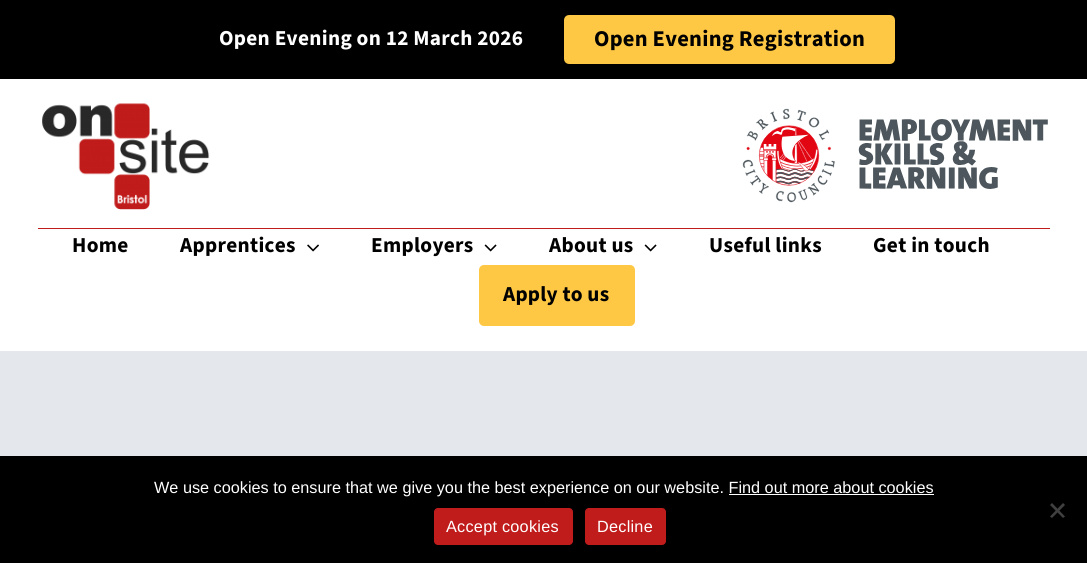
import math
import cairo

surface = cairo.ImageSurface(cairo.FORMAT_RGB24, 1087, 563)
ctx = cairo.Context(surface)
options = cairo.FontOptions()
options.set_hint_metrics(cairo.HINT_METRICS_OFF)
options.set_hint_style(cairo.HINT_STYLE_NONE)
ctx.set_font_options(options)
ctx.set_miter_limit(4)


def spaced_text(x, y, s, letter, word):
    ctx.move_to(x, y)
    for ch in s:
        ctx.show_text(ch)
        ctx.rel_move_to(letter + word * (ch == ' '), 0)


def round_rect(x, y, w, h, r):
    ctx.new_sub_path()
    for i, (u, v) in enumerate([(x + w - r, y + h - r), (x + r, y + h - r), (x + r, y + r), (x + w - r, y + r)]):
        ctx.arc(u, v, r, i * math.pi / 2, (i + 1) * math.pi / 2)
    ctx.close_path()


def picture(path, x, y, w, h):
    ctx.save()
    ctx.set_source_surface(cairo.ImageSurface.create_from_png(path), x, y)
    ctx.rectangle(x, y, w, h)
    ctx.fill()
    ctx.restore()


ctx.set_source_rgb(1, 1, 1)
ctx.paint()
ctx.set_source_rgb(0, 0, 0)
ctx.rectangle(0, 0, 1087, 79)
ctx.fill()
ctx.select_font_face("Source Sans 3", cairo.FONT_SLANT_NORMAL, cairo.FONT_WEIGHT_BOLD)
ctx.set_font_size(21.25)
ctx.set_source_rgb(1, 1, 1)
spaced_text(219, 45, "Open Evening on 12 March 2026", 0.3, 0)
ctx.set_source_rgb(0.996, 0.784, 0.271)
round_rect(565.5, 16.5, 328, 46, 3.5)
ctx.fill_preserve()
ctx.set_line_width(3)
ctx.stroke()
ctx.set_font_size(22.5)
ctx.set_source_rgb(0, 0, 0)
spaced_text(594, 46, "Open Evening Registration", 0.25, 0)
picture("img1.png", 42, 103, 168, 107)
picture("img2.png", 742, 108, 306, 95)
ctx.set_source_rgb(0.757, 0.11, 0.11)
ctx.rectangle(38, 228, 1012, 1)
ctx.fill()
ctx.set_font_size(21.25)
ctx.set_source_rgb(0, 0, 0)
spaced_text(72, 252, "Home", 0.3, 0)
spaced_text(180, 252, "Apprentices", 0.3, 0)
picture("img3.png", 307, 244, 12, 8)
spaced_text(371, 252, "Employers", 0.3, 0)
picture("img4.png", 484, 244, 13, 8)
spaced_text(549, 252, "About us", 0.3, 0)
picture("img4.png", 644, 244, 13, 8)
spaced_text(709, 252, "Useful links", 0.3, 0)
spaced_text(873, 252, "Get in touch", 0.3, 0)
ctx.set_source_rgb(0.996, 0.784, 0.271)
round_rect(479, 265, 156, 61, 5)
ctx.fill()
ctx.set_source_rgb(0, 0, 0)
spaced_text(503, 301, "Apply to us", 0.25, 0)
ctx.set_source_rgb(0.894, 0.906, 0.925)
ctx.rectangle(0, 351, 1087, 105)
ctx.fill()
ctx.set_source_rgb(0, 0, 0)
ctx.rectangle(0, 456, 1087, 107)
ctx.fill()
ctx.select_font_face("Liberation Sans")
ctx.set_font_size(16.25)
ctx.set_source_rgb(1, 1, 1)
ctx.move_to(154, 493)
ctx.show_text("We use cookies to ensure that we give you the best experience on our website. Find out more about cookies")
ctx.rectangle(729, 494, 205, 1)
ctx.fill()
ctx.set_source_rgb(0.251, 0.251, 0.251)
ctx.new_path()
ctx.move_to(1063, 503)
ctx.line_to(1065, 505)
ctx.line_to(1052, 518)
ctx.line_to(1050, 516.5)
ctx.close_path()
ctx.fill()
ctx.new_path()
ctx.move_to(1050, 505)
ctx.line_to(1052, 503)
ctx.line_to(1065, 516.5)
ctx.line_to(1063, 518)
ctx.close_path()
ctx.fill()
ctx.set_source_rgb(0.757, 0.11, 0.11)
round_rect(434, 508, 139, 37, 4)
ctx.fill()
ctx.set_source_rgb(1, 1, 1)
spaced_text(446, 532, "Accept cookies", 0.25, 0)
ctx.set_source_rgb(0.757, 0.11, 0.11)
round_rect(585, 508, 81, 37, 4)
ctx.fill()
ctx.set_source_rgb(1, 1, 1)
spaced_text(597, 532, "Decline", 0.25, 0)
surface.write_to_png("page.png")
